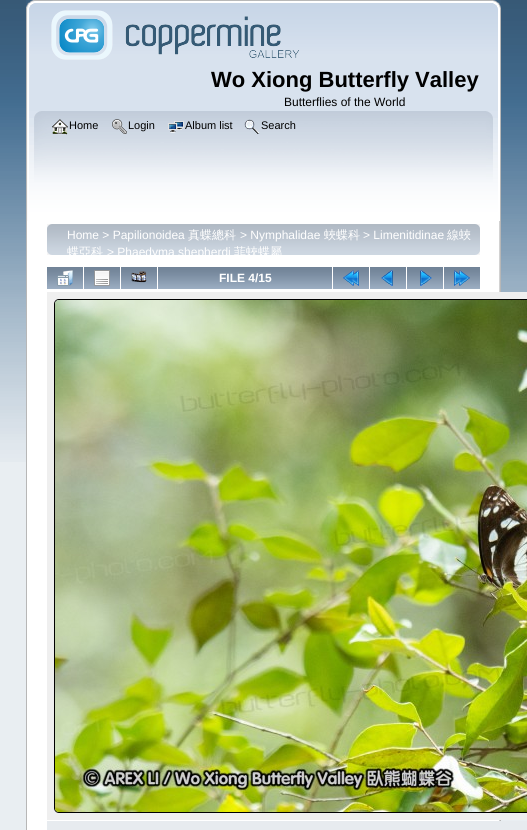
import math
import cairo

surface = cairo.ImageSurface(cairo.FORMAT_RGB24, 527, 830)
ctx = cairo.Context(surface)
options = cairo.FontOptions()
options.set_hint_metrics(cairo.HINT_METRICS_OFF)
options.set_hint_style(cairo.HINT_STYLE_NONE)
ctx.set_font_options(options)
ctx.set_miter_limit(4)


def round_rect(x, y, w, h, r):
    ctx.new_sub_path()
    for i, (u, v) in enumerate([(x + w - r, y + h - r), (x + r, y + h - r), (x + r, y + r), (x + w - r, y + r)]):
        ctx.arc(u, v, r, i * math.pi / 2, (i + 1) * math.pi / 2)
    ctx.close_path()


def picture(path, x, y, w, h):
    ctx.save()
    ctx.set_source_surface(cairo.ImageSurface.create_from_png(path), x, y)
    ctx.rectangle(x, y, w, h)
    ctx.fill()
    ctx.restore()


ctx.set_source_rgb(0.914, 0.933, 0.949)
ctx.paint()
picture("img1.png", 0, 0, 527, 462)
picture("img2.png", 26, 0, 467, 111)
picture("img3.png", 493, 0, 8, 111)
picture("img4.png", 51, 10, 248, 50)
ctx.select_font_face("Liberation Sans", cairo.FONT_SLANT_NORMAL, cairo.FONT_WEIGHT_BOLD)
ctx.set_font_size(22)
ctx.set_source_rgb(0, 0, 0)
ctx.move_to(211, 87)
ctx.show_text("Wo Xiong Butterfly Valley")
ctx.select_font_face("Liberation Sans")
ctx.set_font_size(12)
ctx.move_to(284, 106)
ctx.show_text("Butterflies of the World")
picture("img5.png", 26, 111, 460, 110)
picture("img6.png", 486, 111, 15, 110)
picture("img7.png", 52, 119, 16, 16)
ctx.set_font_size(11)
ctx.move_to(69, 129)
ctx.show_text("Home")
picture("img8.png", 112, 119, 15, 15)
ctx.move_to(128, 129)
ctx.show_text("Login")
picture("img9.png", 168, 121, 16, 12)
ctx.move_to(185, 129)
ctx.show_text("Album list")
picture("img10.png", 244, 119, 16, 15)
ctx.move_to(261, 129)
ctx.show_text("Search")
ctx.set_source_rgb(1, 1, 1)
ctx.rectangle(27, 221, 472, 609)
ctx.fill()
ctx.set_source_rgb(0.718, 0.718, 0.718)
ctx.rectangle(26, 221, 1, 609)
ctx.fill()
picture("img11.png", 499, 221, 2, 600)
picture("img12.png", 47, 224, 428, 31)
picture("img13.png", 475, 224, 5, 31)
ctx.set_font_size(12)
ctx.set_source_rgb(1, 1, 1)
ctx.move_to(67, 239)
ctx.show_text("Home > Papilionoidea")
ctx.select_font_face("WenQuanYi Zen Hei Medium")
ctx.move_to(188, 239)
ctx.show_text("真蝶總科")
ctx.select_font_face("Liberation Sans")
ctx.move_to(240, 239)
ctx.show_text("> Nymphalidae")
ctx.select_font_face("WenQuanYi Zen Hei Medium")
ctx.move_to(324, 239)
ctx.show_text("蛺蝶科")
ctx.select_font_face("Liberation Sans")
ctx.move_to(363, 239)
ctx.show_text("> Limenitidinae")
ctx.select_font_face("WenQuanYi Zen Hei Medium")
ctx.move_to(447, 239)
ctx.show_text("線蛺")
ctx.move_to(67, 256)
ctx.show_text("蝶亞科")
ctx.select_font_face("Liberation Sans")
ctx.move_to(107, 256)
ctx.show_text("> Phaedyma shepherdi")
ctx.select_font_face("WenQuanYi Zen Hei Medium")
ctx.move_to(234, 256)
ctx.show_text("菲蛺蝶屬")
picture("img14.png", 47, 267, 36, 22)
picture("img15.png", 57, 270, 16, 16)
picture("img14.png", 84, 267, 36, 22)
picture("img16.png", 94, 270, 16, 16)
picture("img14.png", 121, 267, 36, 22)
picture("img17.png", 131, 271, 16, 12)
picture("img18.png", 158, 267, 174, 22)
ctx.select_font_face("Liberation Sans", cairo.FONT_SLANT_NORMAL, cairo.FONT_WEIGHT_BOLD)
ctx.move_to(219, 282)
ctx.show_text("FILE 4/15")
picture("img14.png", 333, 267, 36, 22)
picture("img19.png", 343, 270, 16, 16)
picture("img14.png", 370, 267, 36, 22)
picture("img20.png", 381, 270, 12, 16)
picture("img14.png", 407, 267, 36, 22)
picture("img21.png", 420, 270, 12, 16)
picture("img14.png", 444, 267, 36, 22)
picture("img22.png", 454, 270, 16, 16)
ctx.set_source_rgb(0.937, 0.937, 0.937)
ctx.rectangle(47, 292, 480, 528)
ctx.fill()
round_rect(54.5, 299.5, 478, 513, 4.5)
ctx.set_source_rgb(0, 0, 0)
ctx.set_line_width(1)
ctx.stroke()
picture("img23.png", 55, 300, 472, 512)
ctx.set_source_rgb(0.906, 0.918, 0.937)
ctx.rectangle(47, 821, 480, 9)
ctx.fill()
surface.write_to_png("page.png")
